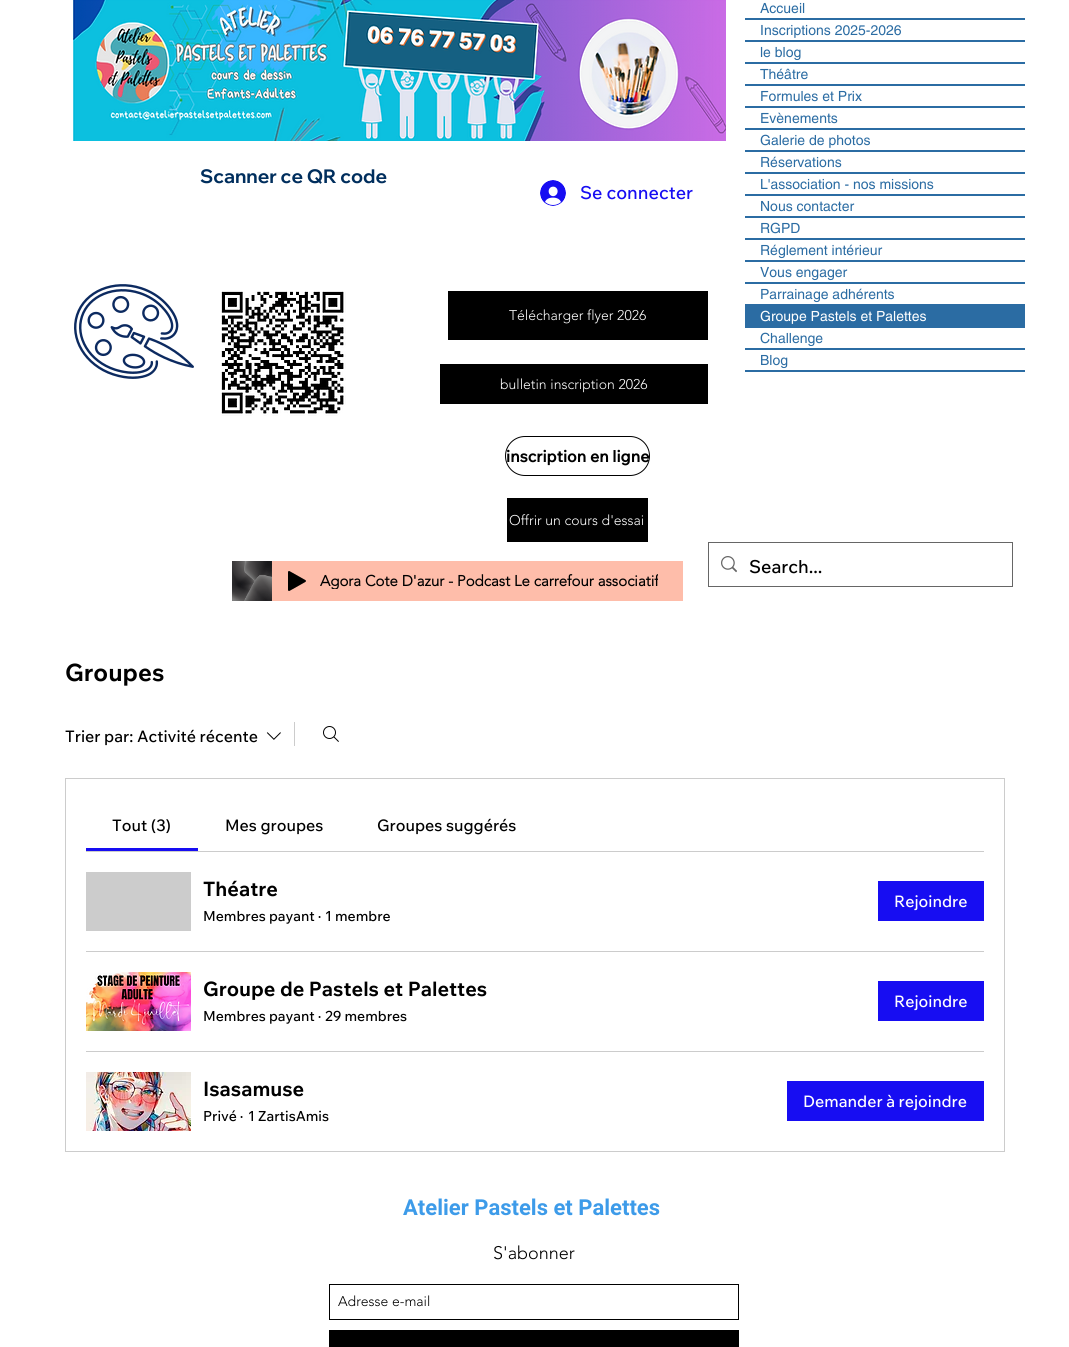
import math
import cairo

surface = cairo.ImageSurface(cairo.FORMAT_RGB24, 1069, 1347)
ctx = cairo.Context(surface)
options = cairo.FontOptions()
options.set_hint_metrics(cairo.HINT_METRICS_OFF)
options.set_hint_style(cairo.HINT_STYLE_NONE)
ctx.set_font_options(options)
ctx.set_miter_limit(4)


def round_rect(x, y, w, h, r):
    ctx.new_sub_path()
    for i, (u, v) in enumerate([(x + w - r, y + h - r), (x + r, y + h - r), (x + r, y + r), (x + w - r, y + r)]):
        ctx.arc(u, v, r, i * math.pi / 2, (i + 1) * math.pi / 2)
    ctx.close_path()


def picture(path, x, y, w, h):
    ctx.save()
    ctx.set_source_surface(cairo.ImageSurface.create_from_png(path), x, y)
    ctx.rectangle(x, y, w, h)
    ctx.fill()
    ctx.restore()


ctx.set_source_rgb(1, 1, 1)
ctx.paint()
picture("img1.png", 73, 0, 653, 141)
ctx.set_source_rgb(0.169, 0.424, 0.639)
ctx.rectangle(745, 370, 280, 2)
ctx.fill()
ctx.rectangle(745, 18, 280, 2)
ctx.fill()
ctx.select_font_face("helvetica")
ctx.set_font_size(14)
ctx.move_to(760, 13)
ctx.show_text("Accueil")
ctx.rectangle(745, 40, 280, 2)
ctx.fill()
ctx.move_to(760, 35)
ctx.show_text("Inscriptions 2025-2026")
ctx.rectangle(745, 62, 280, 2)
ctx.fill()
ctx.move_to(760, 57)
ctx.show_text("le blog")
ctx.rectangle(745, 84, 280, 2)
ctx.fill()
ctx.move_to(760, 79)
ctx.show_text("Théâtre")
ctx.rectangle(745, 106, 280, 2)
ctx.fill()
ctx.move_to(760, 101)
ctx.show_text("Formules et Prix")
ctx.rectangle(745, 128, 280, 2)
ctx.fill()
ctx.move_to(760, 123)
ctx.show_text("Evènements")
ctx.rectangle(745, 150, 280, 2)
ctx.fill()
ctx.move_to(760, 145)
ctx.show_text("Galerie de photos")
ctx.rectangle(745, 172, 280, 2)
ctx.fill()
ctx.move_to(760, 167)
ctx.show_text("Réservations")
ctx.rectangle(745, 194, 280, 2)
ctx.fill()
ctx.move_to(760, 189)
ctx.show_text("L'association - nos missions")
ctx.rectangle(745, 216, 280, 2)
ctx.fill()
ctx.move_to(760, 211)
ctx.show_text("Nous contacter")
ctx.rectangle(745, 238, 280, 2)
ctx.fill()
ctx.move_to(760, 233)
ctx.show_text("RGPD")
ctx.rectangle(745, 260, 280, 2)
ctx.fill()
ctx.move_to(760, 255)
ctx.show_text("Réglement intérieur")
ctx.rectangle(745, 282, 280, 2)
ctx.fill()
ctx.move_to(760, 277)
ctx.show_text("Vous engager")
ctx.rectangle(745, 304, 280, 2)
ctx.fill()
ctx.move_to(760, 299)
ctx.show_text("Parrainage adhérents")
ctx.rectangle(745, 306, 280, 22)
ctx.fill()
ctx.set_source_rgb(1, 1, 1)
ctx.move_to(760, 321)
ctx.show_text("Groupe Pastels et Palettes")
ctx.set_source_rgb(0.169, 0.424, 0.639)
ctx.rectangle(745, 348, 280, 2)
ctx.fill()
ctx.move_to(760, 343)
ctx.show_text("Challenge")
ctx.move_to(760, 365)
ctx.show_text("Blog")
ctx.select_font_face("Wix Madefor Display", cairo.FONT_SLANT_NORMAL, cairo.FONT_WEIGHT_BOLD)
ctx.set_font_size(19)
ctx.set_source_rgb(0, 0.18, 0.365)
ctx.move_to(200, 183)
ctx.show_text("Scanner ce QR code")
picture("img2.png", 540, 180, 26, 26)
ctx.select_font_face("Wix Madefor Text Medium")
ctx.set_font_size(18)
ctx.set_source_rgb(0.09, 0.051, 0.949)
ctx.move_to(580, 199)
ctx.show_text("Se connecter")
picture("img3.png", 74, 284, 120, 95)
picture("img4.png", 221, 291, 125, 125)
ctx.set_source_rgb(0, 0, 0)
ctx.rectangle(448, 291, 260, 49)
ctx.fill()
ctx.select_font_face("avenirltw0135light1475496 Light")
ctx.set_font_size(14)
ctx.set_source_rgb(1, 1, 1)
ctx.move_to(509, 320)
ctx.show_text("Télécharger flyer 2026")
ctx.set_source_rgb(0, 0, 0)
ctx.rectangle(440, 364, 268, 40)
ctx.fill()
ctx.set_source_rgb(1, 1, 1)
ctx.move_to(500, 389)
ctx.show_text("bulletin inscription 2026")
round_rect(505.5, 436.5, 144, 39, 19.5)
ctx.set_source_rgb(0, 0, 0)
ctx.set_line_width(1)
ctx.stroke()
ctx.select_font_face("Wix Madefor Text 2", cairo.FONT_SLANT_NORMAL, cairo.FONT_WEIGHT_BOLD)
ctx.set_font_size(16)
ctx.move_to(506, 462)
ctx.show_text("inscription en ligne")
ctx.rectangle(507, 498, 141, 44)
ctx.fill()
ctx.select_font_face("avenirltw0135light1475496 Light")
ctx.set_font_size(14)
ctx.set_source_rgb(1, 1, 1)
ctx.move_to(509, 525)
ctx.show_text("Offrir un cours d'essai")
ctx.rectangle(708.5, 542.5, 304, 44)
ctx.set_source_rgb(0.4, 0.4, 0.4)
ctx.stroke()
picture("img5.png", 721, 556, 16, 17)
ctx.select_font_face("Wix Madefor Text Medium")
ctx.set_font_size(18)
ctx.set_source_rgb(0, 0, 0)
ctx.move_to(749, 573)
ctx.show_text("Search...")
ctx.set_source_rgb(0.996, 0.741, 0.667)
ctx.rectangle(272, 561, 411, 40)
ctx.fill()
picture("img6.png", 232, 561, 40, 40)
picture("img7.png", 288, 571, 18, 20)
ctx.save()
ctx.rectangle(320, 574, 338, 15)
ctx.clip()
ctx.select_font_face("avenirltw0135light1475496", cairo.FONT_SLANT_NORMAL, cairo.FONT_WEIGHT_BOLD)
ctx.set_font_size(15)
ctx.set_source_rgb(0, 0, 0)
ctx.move_to(320, 586)
ctx.show_text("Agora Cote D'azur - Podcast Le carrefour associatif")
ctx.restore()
ctx.select_font_face("Wix Madefor Text", cairo.FONT_SLANT_NORMAL, cairo.FONT_WEIGHT_BOLD)
ctx.set_font_size(24)
ctx.set_source_rgb(0, 0, 0)
ctx.move_to(65, 681)
ctx.show_text("Groupes")
ctx.select_font_face("Wix Madefor Text Medium")
ctx.set_font_size(16)
ctx.move_to(65, 742)
ctx.show_text("Trier par:")
ctx.move_to(137, 742)
ctx.show_text("Activité récente")
picture("img8.png", 266, 732, 15, 8)
ctx.set_source_rgb(0.8, 0.8, 0.8)
ctx.rectangle(294, 722, 1, 24)
ctx.fill()
picture("img9.png", 323, 726, 16, 16)
ctx.rectangle(65.5, 778.5, 939, 373)
ctx.stroke()
ctx.rectangle(86, 851, 898, 1)
ctx.fill()
ctx.set_source_rgb(0.09, 0.051, 0.949)
ctx.rectangle(86, 848, 112, 3)
ctx.fill()
ctx.set_source_rgb(0, 0, 0)
ctx.move_to(112, 831)
ctx.show_text("Tout (3)")
ctx.move_to(225, 831)
ctx.show_text("Mes groupes")
ctx.move_to(377, 831)
ctx.show_text("Groupes suggérés")
ctx.set_source_rgb(0.8, 0.8, 0.8)
ctx.rectangle(86, 872, 105, 59)
ctx.fill()
ctx.select_font_face("Wix Madefor Text", cairo.FONT_SLANT_NORMAL, cairo.FONT_WEIGHT_BOLD)
ctx.set_font_size(20)
ctx.set_source_rgb(0, 0, 0)
ctx.move_to(203, 896)
ctx.show_text("Théatre")
ctx.select_font_face("Wix Madefor Text Medium")
ctx.set_font_size(14)
ctx.move_to(203, 921)
ctx.show_text("Membres payant")
ctx.move_to(318, 921)
ctx.show_text("·")
ctx.move_to(325, 921)
ctx.show_text("1 membre")
ctx.set_source_rgb(0.09, 0.051, 0.949)
ctx.rectangle(878, 881, 106, 40)
ctx.fill()
ctx.set_font_size(16)
ctx.set_source_rgb(1, 1, 1)
ctx.move_to(894, 907)
ctx.show_text("Rejoindre")
ctx.set_source_rgb(0.8, 0.8, 0.8)
ctx.rectangle(86, 951, 898, 1)
ctx.fill()
picture("img10.png", 86, 972, 105, 59)
ctx.select_font_face("Wix Madefor Text", cairo.FONT_SLANT_NORMAL, cairo.FONT_WEIGHT_BOLD)
ctx.set_font_size(20)
ctx.set_source_rgb(0, 0, 0)
ctx.move_to(203, 996)
ctx.show_text("Groupe de Pastels et Palettes")
ctx.select_font_face("Wix Madefor Text Medium")
ctx.set_font_size(14)
ctx.move_to(203, 1021)
ctx.show_text("Membres payant")
ctx.move_to(318, 1021)
ctx.show_text("·")
ctx.move_to(325, 1021)
ctx.show_text("29 membres")
ctx.set_source_rgb(0.09, 0.051, 0.949)
ctx.rectangle(878, 981, 106, 40)
ctx.fill()
ctx.set_font_size(16)
ctx.set_source_rgb(1, 1, 1)
ctx.move_to(894, 1007)
ctx.show_text("Rejoindre")
ctx.set_source_rgb(0.8, 0.8, 0.8)
ctx.rectangle(86, 1051, 898, 1)
ctx.fill()
picture("img11.png", 86, 1072, 105, 59)
ctx.select_font_face("Wix Madefor Text", cairo.FONT_SLANT_NORMAL, cairo.FONT_WEIGHT_BOLD)
ctx.set_font_size(20)
ctx.set_source_rgb(0, 0, 0)
ctx.move_to(203, 1096)
ctx.show_text("Isasamuse")
ctx.select_font_face("Wix Madefor Text Medium")
ctx.set_font_size(14)
ctx.move_to(203, 1121)
ctx.show_text("Privé")
ctx.move_to(240, 1121)
ctx.show_text("·")
ctx.move_to(248, 1121)
ctx.show_text("1 ZartisAmis")
ctx.set_source_rgb(0.09, 0.051, 0.949)
ctx.rectangle(787, 1081, 197, 40)
ctx.fill()
ctx.set_font_size(16)
ctx.set_source_rgb(1, 1, 1)
ctx.move_to(803, 1107)
ctx.show_text("Demander à rejoindre")
ctx.select_font_face("Roboto", cairo.FONT_SLANT_NORMAL, cairo.FONT_WEIGHT_BOLD)
ctx.set_font_size(22)
ctx.set_source_rgb(0.239, 0.608, 0.914)
ctx.move_to(403, 1215)
ctx.show_text("Atelier Pastels et Palettes")
ctx.select_font_face("avenirltw0135light1475496 Light")
ctx.set_font_size(18)
ctx.set_source_rgb(0, 0, 0)
ctx.move_to(493, 1259)
ctx.show_text("S'abonner")
ctx.rectangle(329.5, 1284.5, 409, 35)
ctx.stroke()
ctx.set_font_size(14)
ctx.move_to(338, 1306)
ctx.show_text("Adresse e-mail")
ctx.rectangle(329, 1330, 410, 17)
ctx.fill()
surface.write_to_png("page.png")
